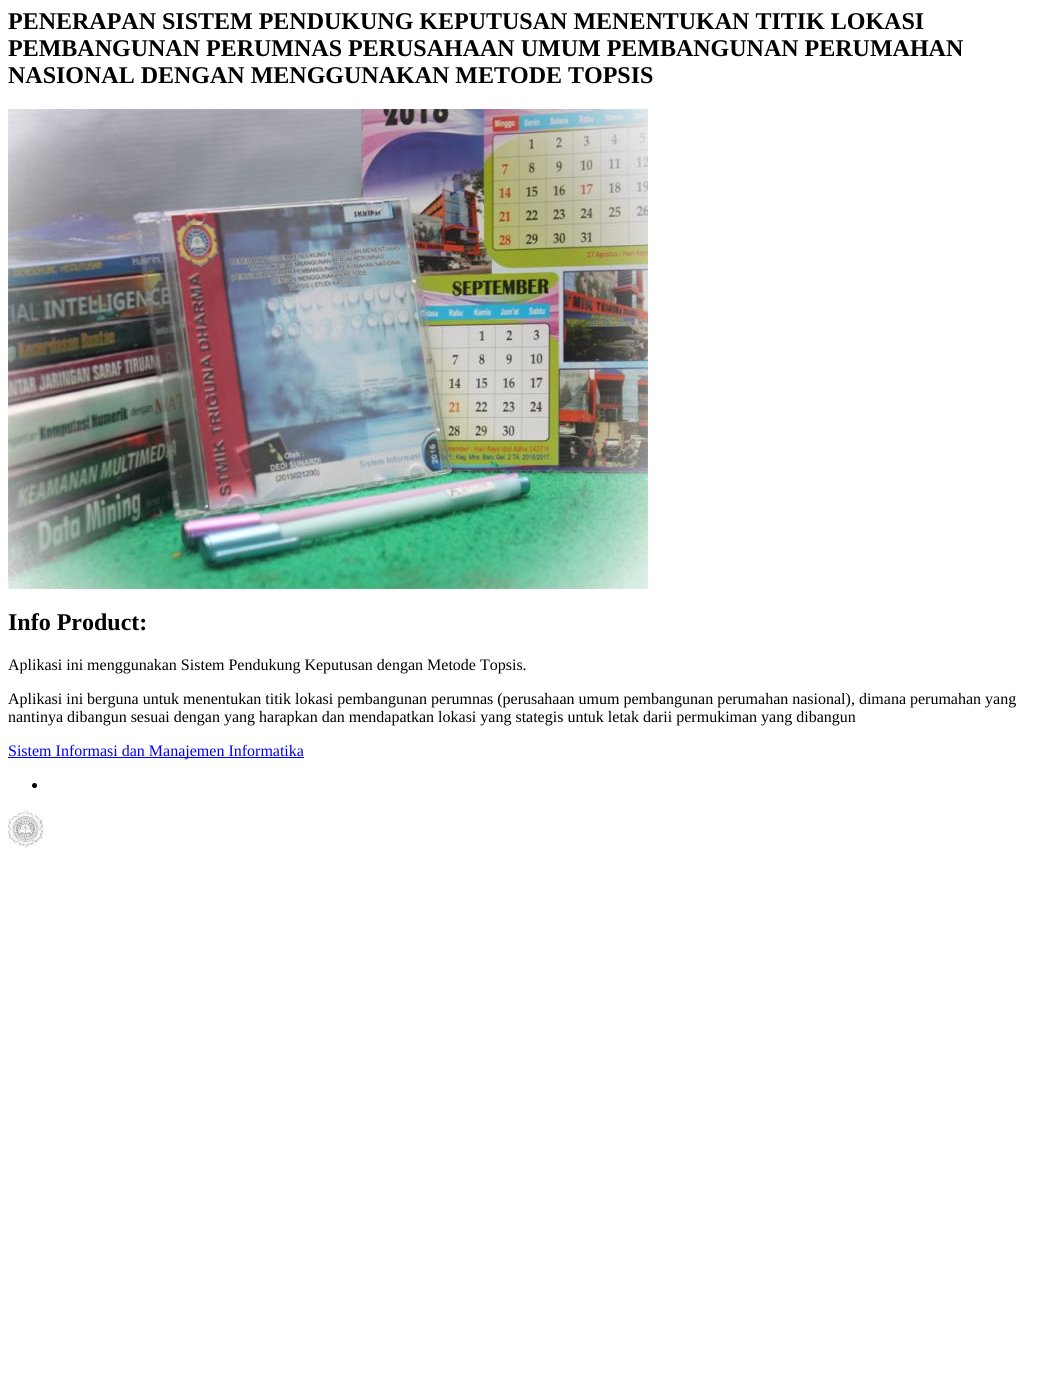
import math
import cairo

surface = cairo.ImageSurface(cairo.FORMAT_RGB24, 1040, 1383)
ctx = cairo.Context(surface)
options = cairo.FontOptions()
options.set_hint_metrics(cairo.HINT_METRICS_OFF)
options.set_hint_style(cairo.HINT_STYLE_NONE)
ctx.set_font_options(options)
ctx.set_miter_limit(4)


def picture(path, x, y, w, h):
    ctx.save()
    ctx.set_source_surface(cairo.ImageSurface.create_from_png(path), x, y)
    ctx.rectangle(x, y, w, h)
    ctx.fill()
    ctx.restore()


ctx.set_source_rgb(1, 1, 1)
ctx.paint()
ctx.select_font_face("Liberation Serif", cairo.FONT_SLANT_NORMAL, cairo.FONT_WEIGHT_BOLD)
ctx.set_font_size(24)
ctx.set_source_rgb(0, 0, 0)
ctx.move_to(8, 29)
ctx.show_text("PENERAPAN SISTEM PENDUKUNG KEPUTUSAN MENENTUKAN TITIK LOKASI")
ctx.move_to(8, 56)
ctx.show_text("PEMBANGUNAN PERUMNAS PERUSAHAAN UMUM PEMBANGUNAN PERUMAHAN")
ctx.move_to(8, 83)
ctx.show_text("NASIONAL DENGAN MENGGUNAKAN METODE TOPSIS")
picture("img1.png", 8, 109, 640, 480)
ctx.move_to(8, 630)
ctx.show_text("Info Product:")
ctx.select_font_face("Liberation Serif")
ctx.set_font_size(16)
ctx.move_to(8, 670)
ctx.show_text("Aplikasi ini menggunakan Sistem Pendukung Keputusan dengan Metode Topsis.")
ctx.move_to(8, 704)
ctx.show_text("Aplikasi ini berguna untuk menentukan titik lokasi pembangunan perumnas (perusahaan umum pembangunan perumahan nasional), dimana perumahan yang")
ctx.move_to(8, 722)
ctx.show_text("nantinya dibangun sesuai dengan yang harapkan dan mendapatkan lokasi yang stategis untuk letak darii permukiman yang dibangun")
ctx.set_source_rgb(0, 0, 0.933)
ctx.rectangle(8, 757, 296, 1)
ctx.fill()
ctx.move_to(8, 756)
ctx.show_text("Sistem Informasi dan Manajemen Informatika")
ctx.set_source_rgb(0, 0, 0)
ctx.new_path()
ctx.arc(34.5, 785.5, 2.5, 0, 2 * math.pi)
ctx.fill()
picture("img2.png", 8, 810, 35, 38)
surface.write_to_png("page.png")
